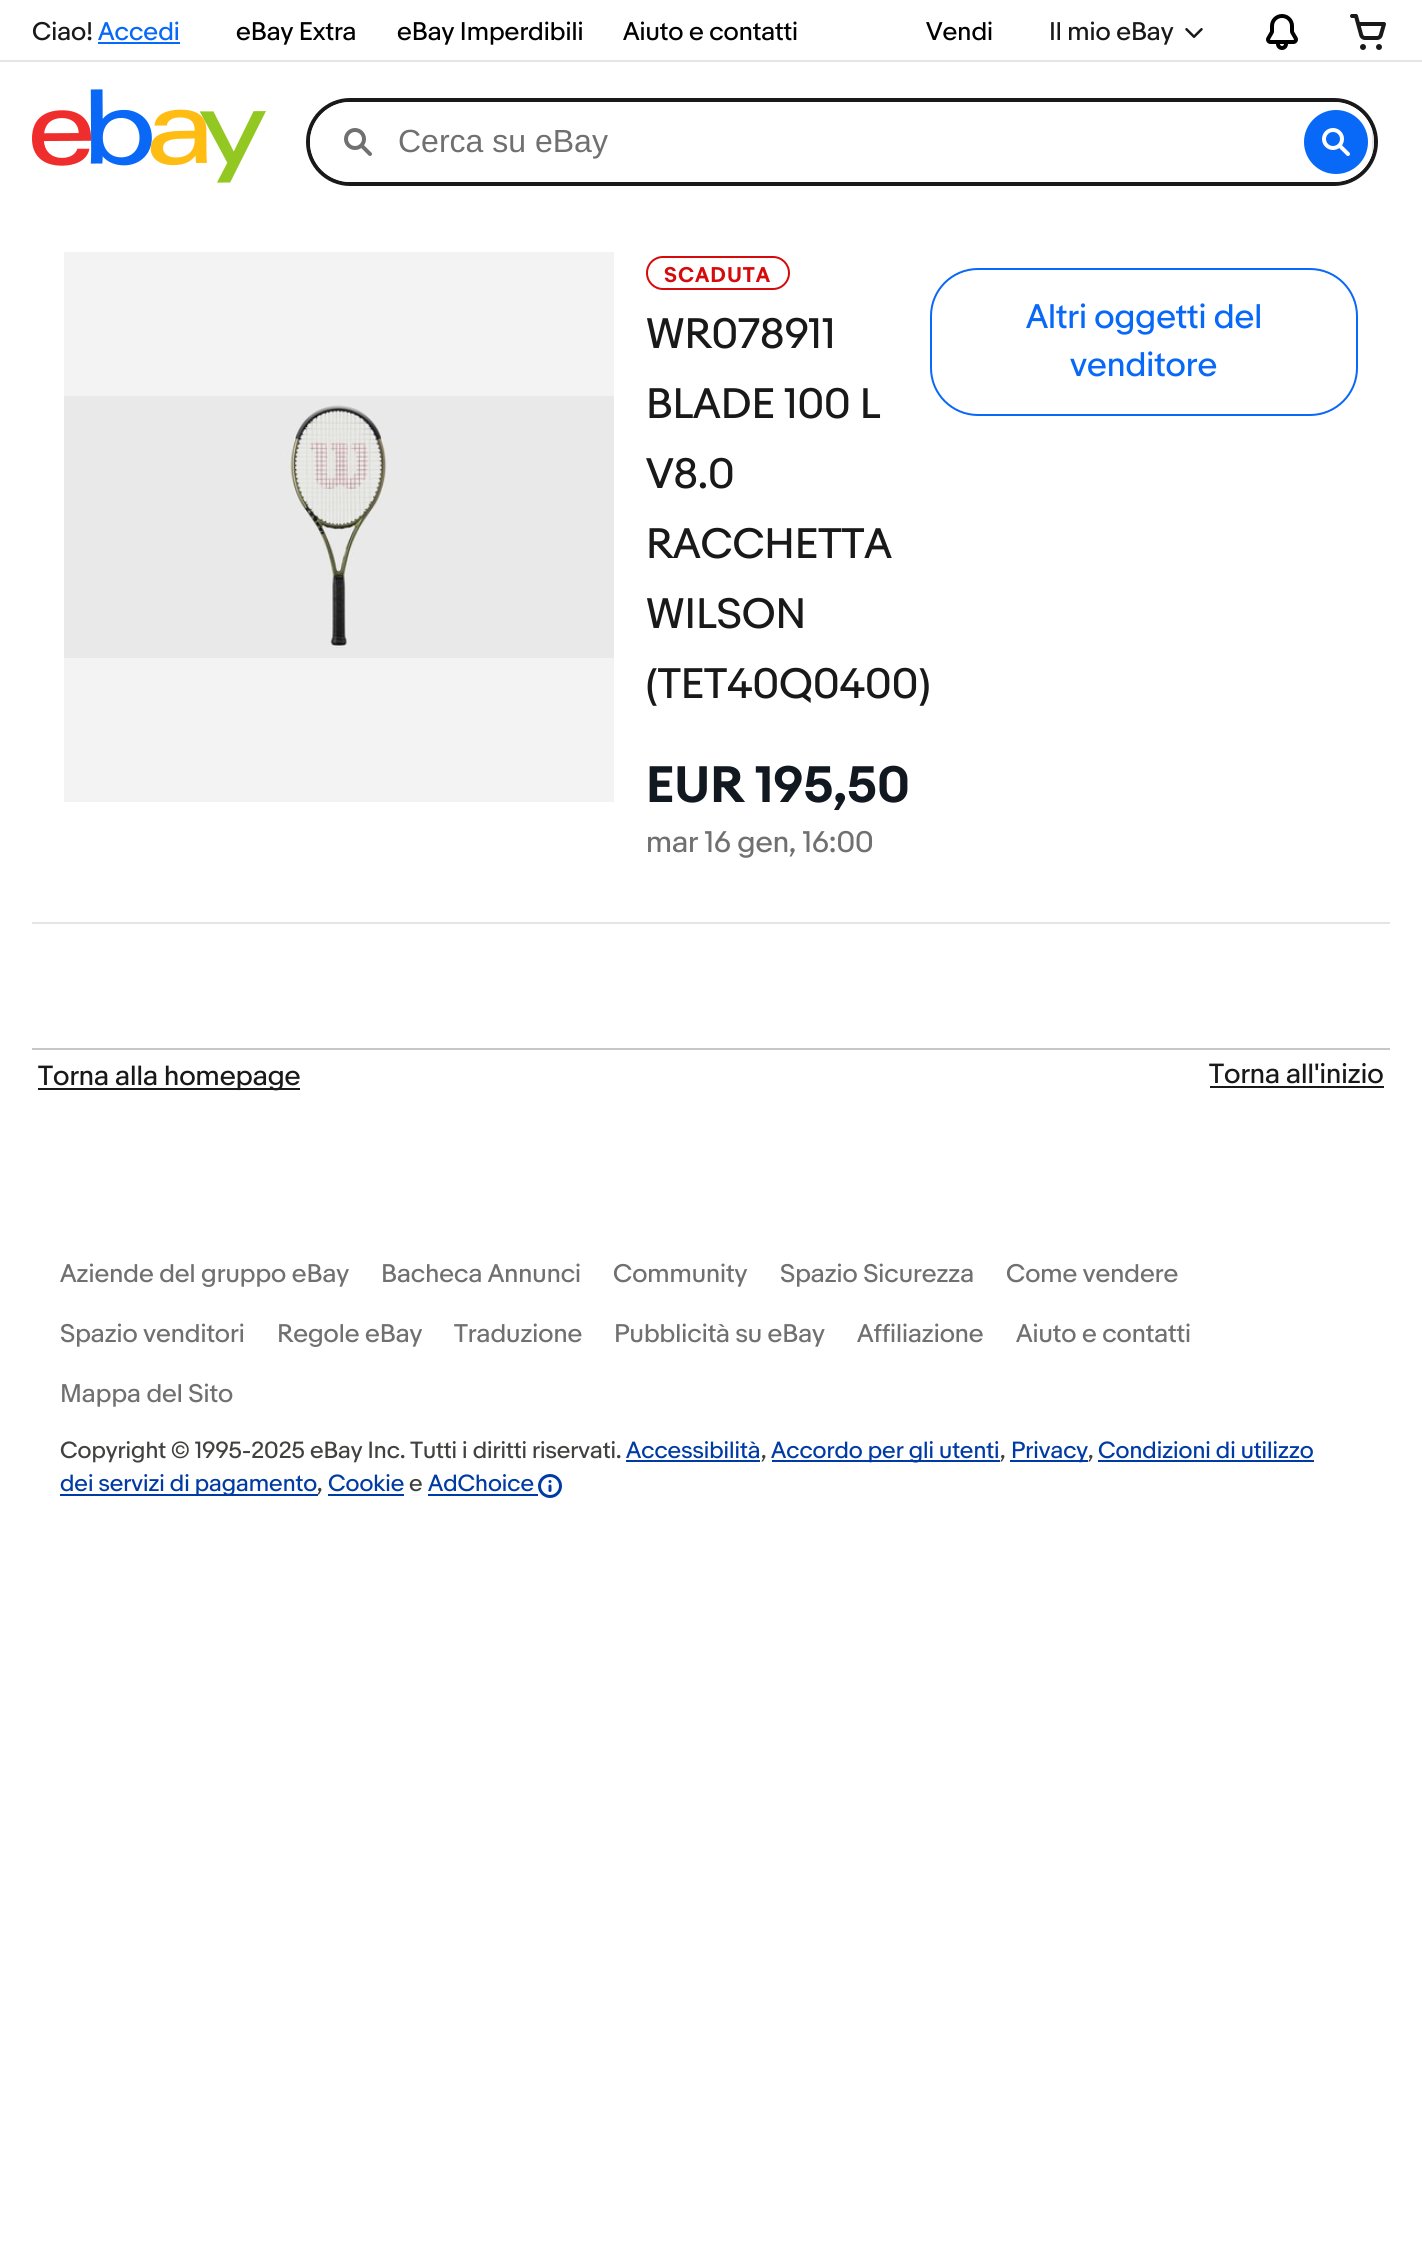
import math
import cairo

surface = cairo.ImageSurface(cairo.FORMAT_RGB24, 1422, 2261)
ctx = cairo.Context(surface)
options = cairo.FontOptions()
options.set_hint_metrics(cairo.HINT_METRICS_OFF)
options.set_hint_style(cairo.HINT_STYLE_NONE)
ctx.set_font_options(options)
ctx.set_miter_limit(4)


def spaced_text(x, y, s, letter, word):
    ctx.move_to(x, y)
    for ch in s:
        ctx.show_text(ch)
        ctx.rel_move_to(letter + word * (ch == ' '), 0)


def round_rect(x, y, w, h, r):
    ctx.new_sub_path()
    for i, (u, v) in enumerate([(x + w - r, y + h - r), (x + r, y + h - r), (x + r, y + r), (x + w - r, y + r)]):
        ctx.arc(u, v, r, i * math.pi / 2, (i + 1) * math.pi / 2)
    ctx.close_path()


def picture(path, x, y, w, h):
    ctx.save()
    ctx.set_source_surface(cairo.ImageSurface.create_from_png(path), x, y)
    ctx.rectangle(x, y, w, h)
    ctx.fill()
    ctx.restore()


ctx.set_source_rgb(1, 1, 1)
ctx.paint()
ctx.select_font_face("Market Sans")
ctx.set_font_size(24)
ctx.set_source_rgb(0.098, 0.098, 0.098)
ctx.move_to(32, 40)
ctx.show_text("Ciao!")
ctx.set_source_rgb(0.035, 0.408, 0.965)
ctx.move_to(98, 40)
ctx.show_text("Accedi")
ctx.rectangle(98, 42, 82, 2)
ctx.fill()
ctx.set_source_rgb(0, 0, 0)
ctx.move_to(236, 40)
ctx.show_text("eBay Extra")
ctx.move_to(397, 40)
ctx.show_text("eBay Imperdibili")
ctx.move_to(623, 40)
ctx.show_text("Aiuto e contatti")
ctx.move_to(926, 40)
ctx.show_text("Vendi")
ctx.set_source_rgb(0.098, 0.098, 0.098)
ctx.move_to(1049, 40)
ctx.show_text("Il mio eBay")
picture("img1.png", 1185, 28, 18, 10)
picture("img2.png", 1266, 14, 32, 36)
picture("img3.png", 1350, 14, 36, 36)
picture("img4.png", 32, 89, 234, 94)
round_rect(308, 100, 1068, 84, 42)
ctx.set_line_width(4)
ctx.stroke()
ctx.save()
round_rect(310, 102, 1064, 80, 40)
ctx.clip()
ctx.set_source_rgb(0.898, 0.898, 0.898)
ctx.rectangle(1372, 129, 2, 26)
ctx.fill()
ctx.set_source_rgb(1, 1, 1)
ctx.new_path()
ctx.move_to(350, 102)
ctx.line_to(1372, 102)
ctx.line_to(1372, 182)
ctx.line_to(350, 182)
ctx.curve_to(328, 182, 310, 164, 310, 142)
ctx.curve_to(310, 120, 328, 102, 350, 102)
ctx.close_path()
ctx.fill()
ctx.restore()
picture("img5.png", 344, 128, 28, 28)
ctx.select_font_face("Liberation Sans")
ctx.set_font_size(32)
ctx.set_source_rgb(0.439, 0.439, 0.439)
ctx.move_to(398, 152)
ctx.show_text("Cerca su eBay")
ctx.set_source_rgb(0.035, 0.408, 0.965)
ctx.new_path()
ctx.arc(1336, 142, 31, 0, 2 * math.pi)
ctx.fill_preserve()
ctx.set_line_width(2)
ctx.stroke()
picture("img6.png", 1322, 128, 28, 28)
ctx.set_source_rgb(0.898, 0.898, 0.898)
ctx.rectangle(32, 922, 1358, 2)
ctx.fill()
picture("img7.png", 64, 396, 550, 262)
ctx.set_source_rgba(0, 0, 0, 0.05)
ctx.rectangle(64, 252, 550, 550)
ctx.fill()
round_rect(647, 257, 142, 32, 16)
ctx.set_source_rgb(0.835, 0.043, 0.043)
ctx.stroke()
ctx.select_font_face("Market Sans", cairo.FONT_SLANT_NORMAL, cairo.FONT_WEIGHT_BOLD)
ctx.set_font_size(20)
spaced_text(664, 282, "SCADUTA", 1, 0)
ctx.select_font_face("Market Sans")
ctx.set_font_size(40)
ctx.set_source_rgb(0.098, 0.098, 0.098)
ctx.move_to(646, 348)
ctx.show_text("WR078911")
ctx.move_to(646, 418)
ctx.show_text("BLADE 100 L")
ctx.move_to(646, 488)
ctx.show_text("V8.0")
ctx.move_to(646, 558)
ctx.show_text("RACCHETTA")
ctx.move_to(646, 628)
ctx.show_text("WILSON")
ctx.move_to(646, 698)
ctx.show_text("(TET40Q0400)")
ctx.select_font_face("Market Sans", cairo.FONT_SLANT_NORMAL, cairo.FONT_WEIGHT_BOLD)
ctx.set_font_size(48)
ctx.set_source_rgb(0.067, 0.094, 0.125)
ctx.move_to(646, 802)
ctx.show_text("EUR 195,50")
ctx.select_font_face("Market Sans")
ctx.set_font_size(28)
ctx.set_source_rgb(0.439, 0.439, 0.439)
ctx.move_to(646, 852)
ctx.show_text("mar 16 gen, 16:00")
round_rect(931, 269, 426, 146, 47)
ctx.set_source_rgb(0.035, 0.408, 0.965)
ctx.stroke()
ctx.set_font_size(32)
ctx.move_to(1026, 328)
ctx.show_text("Altri oggetti del")
ctx.move_to(1070, 376)
ctx.show_text("venditore")
ctx.set_source_rgb(0.78, 0.78, 0.78)
ctx.rectangle(32, 1048, 1358, 2)
ctx.fill()
ctx.set_source_rgb(0.098, 0.098, 0.098)
ctx.rectangle(38, 1088, 262, 2)
ctx.fill()
ctx.set_font_size(26)
ctx.move_to(38, 1085)
ctx.show_text("Torna alla homepage")
ctx.move_to(1209, 1083)
ctx.show_text("Torna all'inizio")
ctx.rectangle(1210, 1086, 174, 2)
ctx.fill()
ctx.set_source_rgb(0.898, 0.898, 0.898)
ctx.rectangle(0, 60, 1422, 2)
ctx.fill()
ctx.set_font_size(24)
ctx.set_source_rgb(0.439, 0.439, 0.439)
ctx.move_to(60, 1282)
ctx.show_text("Aziende del gruppo eBay")
ctx.move_to(381, 1282)
ctx.show_text("Bacheca Annunci")
ctx.move_to(613, 1282)
ctx.show_text("Community")
ctx.move_to(780, 1282)
ctx.show_text("Spazio Sicurezza")
ctx.move_to(1006, 1282)
ctx.show_text("Come vendere")
ctx.move_to(60, 1342)
ctx.show_text("Spazio venditori")
ctx.move_to(277, 1342)
ctx.show_text("Regole eBay")
ctx.move_to(454, 1342)
ctx.show_text("Traduzione")
ctx.move_to(614, 1342)
ctx.show_text("Pubblicità su eBay")
ctx.move_to(857, 1342)
ctx.show_text("Affiliazione")
ctx.move_to(1016, 1342)
ctx.show_text("Aiuto e contatti")
ctx.move_to(60, 1402)
ctx.show_text("Mappa del Sito")
ctx.set_font_size(22)
ctx.set_source_rgb(0.255, 0.255, 0.247)
ctx.move_to(60, 1458)
ctx.show_text("Copyright © 1995-2025 eBay Inc. Tutti i diritti riservati.")
ctx.set_source_rgb(0, 0.227, 0.647)
ctx.move_to(626, 1458)
ctx.show_text("Accessibilità")
ctx.rectangle(626, 1460, 134, 2)
ctx.fill()
ctx.set_source_rgb(0.255, 0.255, 0.247)
ctx.move_to(761, 1458)
ctx.show_text(",")
ctx.set_source_rgb(0, 0.227, 0.647)
ctx.rectangle(772, 1460, 228, 2)
ctx.fill()
ctx.move_to(771, 1458)
ctx.show_text("Accordo per gli utenti")
ctx.set_source_rgb(0.255, 0.255, 0.247)
ctx.move_to(1000, 1458)
ctx.show_text(",")
ctx.set_source_rgb(0, 0.227, 0.647)
ctx.rectangle(1010, 1460, 78, 2)
ctx.fill()
ctx.move_to(1011, 1458)
ctx.show_text("Privacy")
ctx.set_source_rgb(0.255, 0.255, 0.247)
ctx.move_to(1088, 1458)
ctx.show_text(",")
ctx.set_source_rgb(0, 0.227, 0.647)
ctx.move_to(1098, 1458)
ctx.show_text("Condizioni di utilizzo")
ctx.rectangle(1098, 1460, 216, 2)
ctx.fill()
ctx.rectangle(60, 1494, 258, 2)
ctx.fill()
ctx.move_to(60, 1491)
ctx.show_text("dei servizi di pagamento")
ctx.set_source_rgb(0.255, 0.255, 0.247)
ctx.move_to(317, 1491)
ctx.show_text(",")
ctx.set_source_rgb(0, 0.227, 0.647)
ctx.move_to(328, 1491)
ctx.show_text("Cookie")
ctx.rectangle(328, 1494, 76, 2)
ctx.fill()
ctx.set_source_rgb(0.255, 0.255, 0.247)
ctx.move_to(409, 1491)
ctx.show_text("e")
ctx.set_source_rgb(0, 0.227, 0.647)
ctx.move_to(428, 1491)
ctx.show_text("AdChoice")
ctx.rectangle(428, 1494, 110, 2)
ctx.fill()
picture("img8.png", 538, 1474, 24, 24)
surface.write_to_png("page.png")
